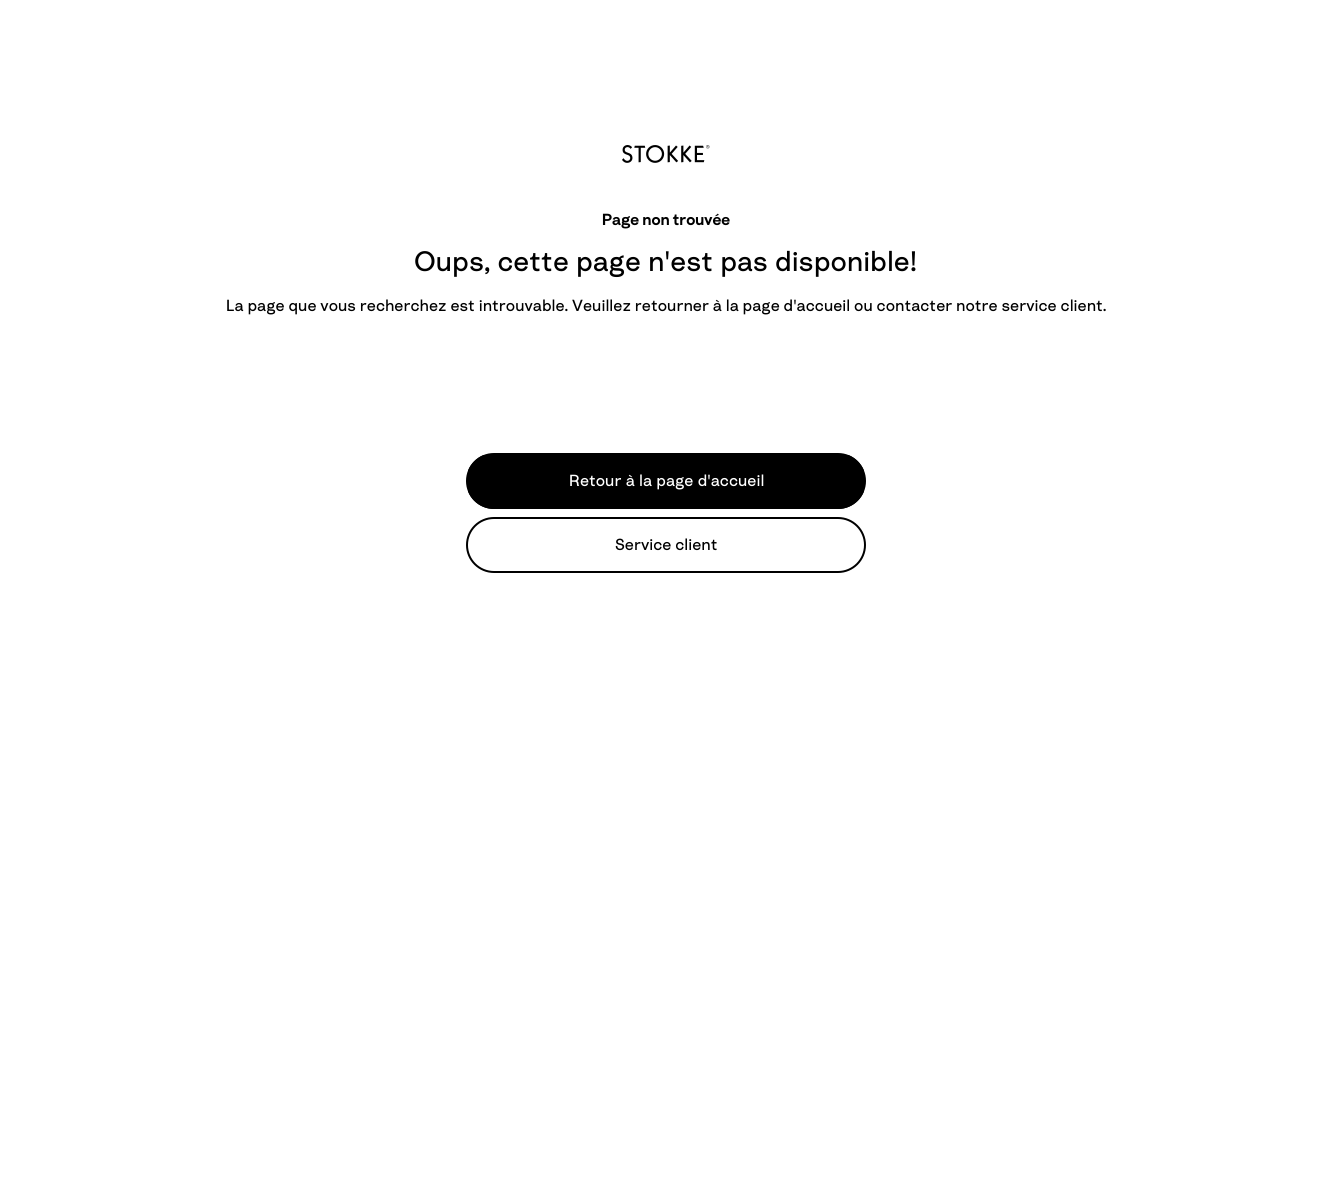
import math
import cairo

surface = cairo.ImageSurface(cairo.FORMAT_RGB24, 1332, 1201)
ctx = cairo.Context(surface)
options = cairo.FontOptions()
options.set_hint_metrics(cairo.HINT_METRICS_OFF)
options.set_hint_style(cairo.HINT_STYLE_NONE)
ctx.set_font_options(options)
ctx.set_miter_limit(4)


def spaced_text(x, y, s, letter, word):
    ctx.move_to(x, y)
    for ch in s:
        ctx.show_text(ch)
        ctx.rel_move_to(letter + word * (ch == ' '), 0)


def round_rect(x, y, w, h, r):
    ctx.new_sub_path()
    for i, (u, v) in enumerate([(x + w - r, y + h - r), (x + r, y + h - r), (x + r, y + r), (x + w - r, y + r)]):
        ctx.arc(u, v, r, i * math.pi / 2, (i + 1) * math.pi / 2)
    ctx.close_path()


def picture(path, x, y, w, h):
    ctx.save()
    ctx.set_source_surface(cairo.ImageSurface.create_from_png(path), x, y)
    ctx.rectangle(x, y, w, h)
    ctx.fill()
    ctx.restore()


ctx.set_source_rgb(1, 1, 1)
ctx.paint()
picture("img1.png", 622, 145, 88, 18)
ctx.select_font_face("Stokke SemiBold")
ctx.set_font_size(16)
ctx.set_source_rgb(0, 0, 0)
spaced_text(602, 225, "Page non trouvée", 0, -1)
ctx.select_font_face("Stokke")
ctx.set_font_size(28)
spaced_text(414, 271, "Oups, cette page n'est pas disponible!", 0, -1.25)
ctx.set_font_size(16)
spaced_text(226, 311, "La page que vous recherchez est introuvable. Veuillez retourner à la page d'accueil ou contacter notre service client.", 0, -0.9)
ctx.save()
round_rect(466, 453, 400, 56, 28)
ctx.clip()
ctx.rectangle(468, 455, 396, 54)
ctx.fill()
ctx.restore()
round_rect(467, 454, 398, 54, 27)
ctx.stroke()
ctx.set_source_rgb(1, 1, 1)
spaced_text(569, 486, "Retour à la page d'accueil", 0, -0.5)
round_rect(467, 518, 398, 54, 27)
ctx.set_source_rgb(0, 0, 0)
ctx.stroke()
spaced_text(615, 550, "Service client", 0, -1)
surface.write_to_png("page.png")
